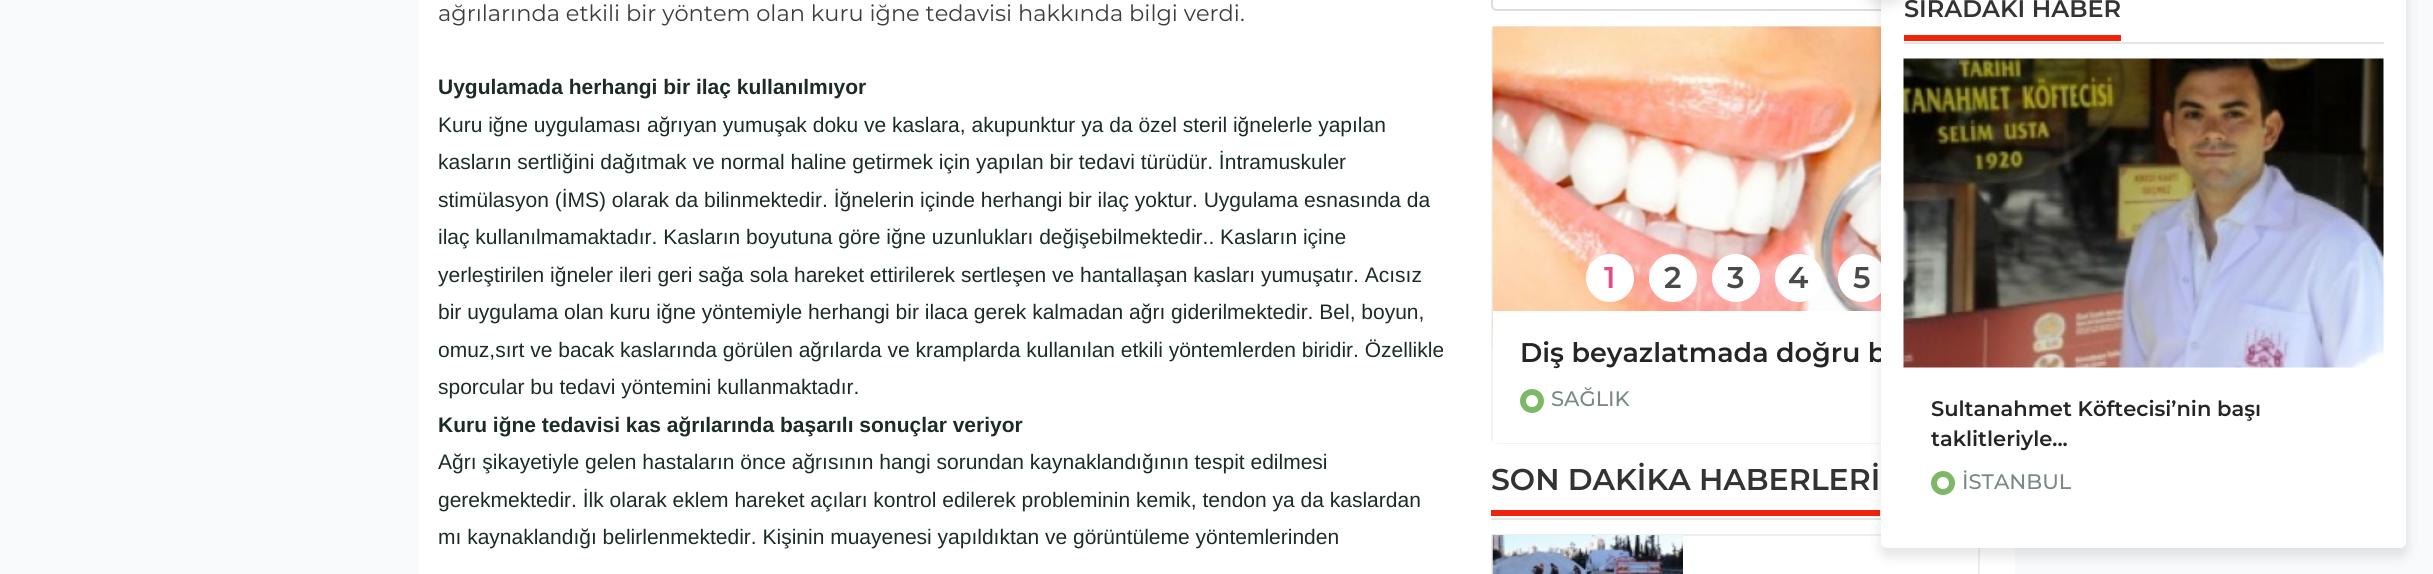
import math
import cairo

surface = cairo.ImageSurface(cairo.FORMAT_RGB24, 2433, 574)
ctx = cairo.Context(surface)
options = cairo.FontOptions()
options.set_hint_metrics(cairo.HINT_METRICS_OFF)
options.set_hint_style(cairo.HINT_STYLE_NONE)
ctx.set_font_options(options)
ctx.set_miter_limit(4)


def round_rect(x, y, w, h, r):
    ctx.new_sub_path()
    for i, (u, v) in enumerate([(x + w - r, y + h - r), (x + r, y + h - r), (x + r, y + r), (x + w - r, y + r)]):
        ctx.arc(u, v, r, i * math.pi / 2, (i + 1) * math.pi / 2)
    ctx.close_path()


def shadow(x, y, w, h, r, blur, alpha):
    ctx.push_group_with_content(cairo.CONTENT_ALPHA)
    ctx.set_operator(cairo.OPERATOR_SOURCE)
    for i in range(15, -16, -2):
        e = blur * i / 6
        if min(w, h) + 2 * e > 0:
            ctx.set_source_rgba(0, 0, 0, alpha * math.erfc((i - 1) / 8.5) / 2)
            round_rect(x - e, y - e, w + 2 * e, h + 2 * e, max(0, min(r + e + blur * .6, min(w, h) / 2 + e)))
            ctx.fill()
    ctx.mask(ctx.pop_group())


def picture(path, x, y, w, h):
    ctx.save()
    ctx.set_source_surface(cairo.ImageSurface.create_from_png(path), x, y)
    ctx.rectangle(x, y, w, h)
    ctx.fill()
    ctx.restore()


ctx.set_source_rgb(0.973, 0.98, 0.988)
ctx.paint()
ctx.set_source_rgb(1, 1, 1)
ctx.rectangle(419, 0, 1596, 574)
ctx.fill()
ctx.select_font_face("Montserrat")
ctx.set_font_size(22.5)
ctx.set_source_rgb(0.227, 0.243, 0.247)
ctx.move_to(438, 21)
ctx.show_text("ağrılarında etkili bir yöntem olan kuru iğne tedavisi hakkında bilgi verdi.")
ctx.select_font_face("Liberation Sans", cairo.FONT_SLANT_NORMAL, cairo.FONT_WEIGHT_BOLD)
ctx.set_font_size(21)
ctx.set_source_rgb(0.11, 0.169, 0.157)
ctx.move_to(438, 94)
ctx.show_text("Uygulamada herhangi bir ilaç kullanılmıyor")
ctx.select_font_face("Liberation Sans")
ctx.move_to(438, 132)
ctx.show_text("Kuru iğne uygulaması ağrıyan yumuşak doku ve kaslara, akupunktur ya da özel steril iğnelerle yapılan")
ctx.move_to(438, 169)
ctx.show_text("kasların sertliğini dağıtmak ve normal haline getirmek için yapılan bir tedavi türüdür. İntramuskuler")
ctx.move_to(438, 207)
ctx.show_text("stimülasyon (İMS) olarak da bilinmektedir. İğnelerin içinde herhangi bir ilaç yoktur. Uygulama esnasında da")
ctx.move_to(438, 244)
ctx.show_text("ilaç kullanılmamaktadır. Kasların boyutuna göre iğne uzunlukları değişebilmektedir.. Kasların içine")
ctx.move_to(438, 282)
ctx.show_text("yerleştirilen iğneler ileri geri sağa sola hareket ettirilerek sertleşen ve hantallaşan kasları yumuşatır. Acısız")
ctx.move_to(438, 319)
ctx.show_text("bir uygulama olan kuru iğne yöntemiyle herhangi bir ilaca gerek kalmadan ağrı giderilmektedir. Bel, boyun,")
ctx.move_to(438, 357)
ctx.show_text("omuz,sırt ve bacak kaslarında görülen ağrılarda ve kramplarda kullanılan etkili yöntemlerden biridir. Özellikle")
ctx.move_to(438, 394)
ctx.show_text("sporcular bu tedavi yöntemini kullanmaktadır.")
ctx.select_font_face("Liberation Sans", cairo.FONT_SLANT_NORMAL, cairo.FONT_WEIGHT_BOLD)
ctx.move_to(438, 432)
ctx.show_text("Kuru iğne tedavisi kas ağrılarında başarılı sonuçlar veriyor")
ctx.select_font_face("Liberation Sans")
ctx.move_to(438, 469)
ctx.show_text("Ağrı şikayetiyle gelen hastaların önce ağrısının hangi sorundan kaynaklandığının tespit edilmesi")
ctx.move_to(438, 507)
ctx.show_text("gerekmektedir. İlk olarak eklem hareket açıları kontrol edilerek probleminin kemik, tendon ya da kaslardan")
ctx.move_to(438, 544)
ctx.show_text("mı kaynaklandığı belirlenmektedir. Kişinin muayenesi yapıldıktan ve görüntüleme yöntemlerinden")
ctx.new_path()
ctx.move_to(1492, -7)
ctx.line_to(1979, -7)
ctx.line_to(1979, 5)
ctx.curve_to(1979, 8, 1977, 10, 1974, 10)
ctx.line_to(1497, 10)
ctx.curve_to(1494, 10, 1492, 8, 1492, 5)
ctx.close_path()
ctx.set_source_rgb(0.867, 0.867, 0.867)
ctx.stroke()
round_rect(1492, 27, 487, 416, 5)
ctx.set_source_rgb(0.933, 0.953, 0.969)
ctx.stroke()
picture("img1.png", 1492, 26, 389, 323)
ctx.set_source_rgb(1, 1, 1)
ctx.arc(1610, 278, 24, 0, 2 * math.pi)
ctx.fill()
ctx.select_font_face("Montserrat SemiBold")
ctx.set_font_size(30)
ctx.set_source_rgb(0.898, 0.302, 0.541)
ctx.move_to(1604, 288)
ctx.show_text("1")
ctx.set_source_rgb(1, 1, 1)
ctx.new_path()
ctx.arc(1673, 278, 24, 0, 2 * math.pi)
ctx.fill()
ctx.set_source_rgb(0.29, 0.29, 0.29)
ctx.move_to(1664, 288)
ctx.show_text("2")
ctx.set_source_rgb(1, 1, 1)
ctx.new_path()
ctx.arc(1736, 278, 24, 0, 2 * math.pi)
ctx.fill()
ctx.set_source_rgb(0.29, 0.29, 0.29)
ctx.move_to(1727, 288)
ctx.show_text("3")
ctx.set_source_rgb(1, 1, 1)
ctx.new_path()
ctx.arc(1799, 278, 24, 0, 2 * math.pi)
ctx.fill()
ctx.set_source_rgb(0.29, 0.29, 0.29)
ctx.move_to(1788, 288)
ctx.show_text("4")
ctx.set_source_rgb(1, 1, 1)
ctx.new_path()
ctx.arc(1862, 278, 24, 0, 2 * math.pi)
ctx.fill()
ctx.set_source_rgb(0.29, 0.29, 0.29)
ctx.move_to(1853, 288)
ctx.show_text("5")
ctx.set_source_rgb(1, 1, 1)
ctx.rectangle(1493, 311, 388, 132)
ctx.fill()
ctx.set_font_size(27)
ctx.set_source_rgb(0.145, 0.145, 0.145)
ctx.move_to(1520, 362)
ctx.show_text("Diş beyazlatmada doğru b")
ctx.new_path()
ctx.arc(1532, 401, 9, 0, 2 * math.pi)
ctx.set_source_rgb(0.49, 0.722, 0.412)
ctx.set_line_width(6)
ctx.stroke()
ctx.select_font_face("Montserrat Medium")
ctx.set_font_size(21)
ctx.set_source_rgb(0.49, 0.525, 0.533)
ctx.move_to(1551, 406)
ctx.show_text("SAĞLIK")
ctx.set_source_rgb(0.902, 0.902, 0.902)
ctx.rectangle(1491, 518, 390, 2)
ctx.fill()
ctx.select_font_face("Montserrat SemiBold")
ctx.set_font_size(30)
ctx.set_source_rgb(0.2, 0.2, 0.2)
ctx.move_to(1491, 490)
ctx.show_text("SON DAKİKA HABERLERİ")
ctx.set_source_rgb(0.949, 0.133, 0.043)
ctx.rectangle(1491, 510, 389, 6)
ctx.fill()
ctx.rectangle(1492, 535, 487, 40)
ctx.set_source_rgb(0.933, 0.933, 0.933)
ctx.set_line_width(2)
ctx.stroke()
picture("img2.png", 1492, 535, 191, 39)
ctx.set_source_rgb(0, 0, 0)
shadow(1880, -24, 528, 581, 8, 6, 0.1)
ctx.set_source_rgb(1, 1, 1)
round_rect(1881, -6, 525, 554, 6)
ctx.fill()
ctx.set_source_rgb(0.902, 0.902, 0.902)
ctx.rectangle(1904, 42, 480, 2)
ctx.fill()
ctx.set_font_size(24)
ctx.set_source_rgb(0.2, 0.2, 0.2)
ctx.move_to(1904, 17)
ctx.show_text("SIRADAKİ HABER")
ctx.set_source_rgb(0.949, 0.133, 0.043)
ctx.rectangle(1904, 35, 217, 6)
ctx.fill()
ctx.set_source_rgb(0, 0, 0)
shadow(1860, -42, 48, 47, 24, 6, 0.1)
picture("img3.png", 1903, 58, 481, 310)
ctx.set_font_size(21)
ctx.set_source_rgb(0.145, 0.145, 0.145)
ctx.move_to(1931, 416)
ctx.show_text("Sultanahmet Köftecisi’nin başı")
ctx.move_to(1931, 446)
ctx.show_text("taklitleriyle...")
ctx.new_path()
ctx.arc(1943, 483, 9, 0, 2 * math.pi)
ctx.set_source_rgb(0.49, 0.722, 0.412)
ctx.set_line_width(6)
ctx.stroke()
ctx.select_font_face("Montserrat Medium")
ctx.set_source_rgb(0.49, 0.525, 0.533)
ctx.move_to(1962, 489)
ctx.show_text("İSTANBUL")
surface.write_to_png("page.png")
